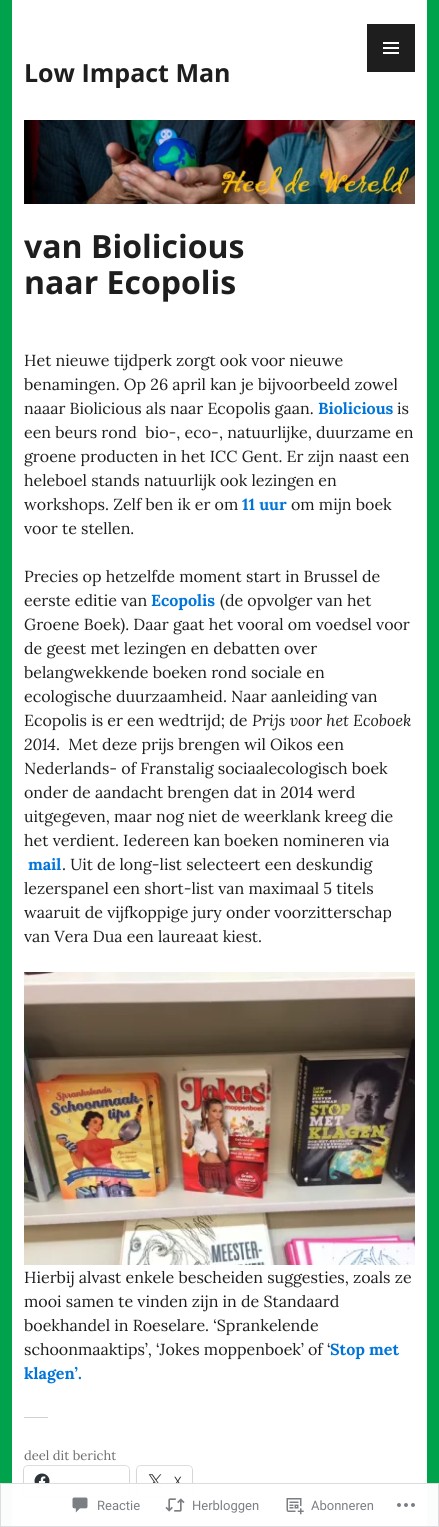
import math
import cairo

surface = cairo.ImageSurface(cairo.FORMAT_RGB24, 439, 1527)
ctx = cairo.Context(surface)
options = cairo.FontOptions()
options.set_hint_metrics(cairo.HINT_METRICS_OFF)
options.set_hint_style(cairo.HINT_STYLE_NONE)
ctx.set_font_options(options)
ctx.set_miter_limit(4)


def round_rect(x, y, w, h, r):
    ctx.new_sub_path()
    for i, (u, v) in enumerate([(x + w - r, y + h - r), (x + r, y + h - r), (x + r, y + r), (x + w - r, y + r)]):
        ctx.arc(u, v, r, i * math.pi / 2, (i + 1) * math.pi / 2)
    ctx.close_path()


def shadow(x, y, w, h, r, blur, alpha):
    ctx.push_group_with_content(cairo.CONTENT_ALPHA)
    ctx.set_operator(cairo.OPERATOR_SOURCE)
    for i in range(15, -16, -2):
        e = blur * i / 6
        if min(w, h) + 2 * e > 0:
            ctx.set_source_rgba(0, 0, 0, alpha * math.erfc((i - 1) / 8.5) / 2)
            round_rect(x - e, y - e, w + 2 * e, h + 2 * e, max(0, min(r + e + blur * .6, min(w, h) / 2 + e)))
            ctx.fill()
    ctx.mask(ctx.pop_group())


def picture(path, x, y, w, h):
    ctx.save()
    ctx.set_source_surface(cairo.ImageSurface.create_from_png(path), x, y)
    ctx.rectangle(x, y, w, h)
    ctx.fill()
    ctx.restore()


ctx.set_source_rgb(0, 0.639, 0.298)
ctx.paint()
ctx.set_source_rgb(1, 1, 1)
ctx.rectangle(12, 0, 415, 1527)
ctx.fill()
ctx.set_source_rgb(0.118, 0.118, 0.118)
ctx.rectangle(367, 24, 48, 48)
ctx.fill()
picture("img1.png", 383, 42, 16, 12)
ctx.select_font_face("Open Sans", cairo.FONT_SLANT_NORMAL, cairo.FONT_WEIGHT_BOLD)
ctx.set_font_size(25)
ctx.move_to(24, 82)
ctx.show_text("Low Impact Man")
picture("img2.png", 24, 120, 391, 84)
ctx.set_font_size(32)
ctx.move_to(24, 258)
ctx.show_text("van Biolicious")
ctx.move_to(24, 294)
ctx.show_text("naar Ecopolis")
ctx.select_font_face("Lora")
ctx.set_font_size(16)
ctx.move_to(24, 366)
ctx.show_text("Het nieuwe tijdperk zorgt ook voor nieuwe")
ctx.move_to(24, 390)
ctx.show_text("benamingen. Op 26 april kan je bijvoorbeeld zowel")
ctx.move_to(24, 414)
ctx.show_text("naaar Biolicious als naar Ecopolis gaan.")
ctx.select_font_face("Lora", cairo.FONT_SLANT_NORMAL, cairo.FONT_WEIGHT_BOLD)
ctx.set_source_rgb(0, 0.455, 0.851)
ctx.move_to(318, 414)
ctx.show_text("Biolicious")
ctx.select_font_face("Lora")
ctx.set_source_rgb(0.118, 0.118, 0.118)
ctx.move_to(397, 414)
ctx.show_text("is")
ctx.move_to(24, 438)
ctx.show_text("een beurs rond  bio-, eco-, natuurlijke, duurzame en")
ctx.move_to(24, 462)
ctx.show_text("groene producten in het ICC Gent. Er zijn naast een")
ctx.move_to(24, 486)
ctx.show_text("heleboel stands natuurlijk ook lezingen en")
ctx.move_to(24, 510)
ctx.show_text("workshops. Zelf ben ik er om")
ctx.select_font_face("Lora", cairo.FONT_SLANT_NORMAL, cairo.FONT_WEIGHT_BOLD)
ctx.set_source_rgb(0, 0.455, 0.851)
ctx.move_to(242, 510)
ctx.show_text("11 uur")
ctx.select_font_face("Lora")
ctx.set_source_rgb(0.118, 0.118, 0.118)
ctx.move_to(291, 510)
ctx.show_text("om mijn boek")
ctx.move_to(24, 534)
ctx.show_text("voor te stellen.")
ctx.move_to(24, 582)
ctx.show_text("Precies op hetzelfde moment start in Brussel de")
ctx.move_to(24, 606)
ctx.show_text("eerste editie van")
ctx.select_font_face("Lora", cairo.FONT_SLANT_NORMAL, cairo.FONT_WEIGHT_BOLD)
ctx.set_source_rgb(0, 0.455, 0.851)
ctx.move_to(151, 606)
ctx.show_text("Ecopolis")
ctx.select_font_face("Lora")
ctx.set_source_rgb(0.118, 0.118, 0.118)
ctx.move_to(220, 606)
ctx.show_text("(de opvolger van het")
ctx.move_to(24, 630)
ctx.show_text("Groene Boek). Daar gaat het vooral om voedsel voor")
ctx.move_to(24, 654)
ctx.show_text("de geest met lezingen en debatten over")
ctx.move_to(24, 678)
ctx.show_text("belangwekkende boeken rond sociale en")
ctx.move_to(24, 702)
ctx.show_text("ecologische duurzaamheid. Naar aanleiding van")
ctx.move_to(24, 726)
ctx.show_text("Ecopolis is er een wedtrijd; de")
ctx.select_font_face("Lora", cairo.FONT_SLANT_ITALIC)
ctx.move_to(252, 726)
ctx.show_text("Prijs voor het Ecoboek")
ctx.move_to(24, 750)
ctx.show_text("2014")
ctx.select_font_face("Lora")
ctx.move_to(56, 750)
ctx.show_text(".  Met deze prijs brengen wil Oikos een")
ctx.move_to(24, 774)
ctx.show_text("Nederlands- of Franstalig sociaalecologisch boek")
ctx.move_to(24, 798)
ctx.show_text("onder de aandacht brengen dat in 2014 werd")
ctx.move_to(24, 822)
ctx.show_text("uitgegeven, maar nog niet de weerklank kreeg die")
ctx.move_to(24, 846)
ctx.show_text("het verdient. Iedereen kan boeken nomineren via")
ctx.select_font_face("Lora", cairo.FONT_SLANT_NORMAL, cairo.FONT_WEIGHT_BOLD)
ctx.set_source_rgb(0, 0.455, 0.851)
ctx.move_to(28, 870)
ctx.show_text("mail")
ctx.select_font_face("Lora")
ctx.set_source_rgb(0.118, 0.118, 0.118)
ctx.move_to(62, 870)
ctx.show_text(". Uit de long-list selecteert een deskundig")
ctx.move_to(24, 894)
ctx.show_text("lezerspanel een short-list van maximaal 5 titels")
ctx.move_to(24, 918)
ctx.show_text("waaruit de vijfkoppige jury onder voorzitterschap")
ctx.move_to(24, 942)
ctx.show_text("van Vera Dua een laureaat kiest.")
picture("img3.png", 24, 972, 391, 293)
ctx.move_to(24, 1283)
ctx.show_text("Hierbij alvast enkele bescheiden suggesties, zoals ze")
ctx.move_to(24, 1307)
ctx.show_text("mooi samen te vinden zijn in de Standaard")
ctx.move_to(24, 1331)
ctx.show_text("boekhandel in Roeselare. ‘Sprankelende")
ctx.move_to(24, 1355)
ctx.show_text("schoonmaaktips’, ‘Jokes moppenboek’ of ‘")
ctx.select_font_face("Lora", cairo.FONT_SLANT_NORMAL, cairo.FONT_WEIGHT_BOLD)
ctx.set_source_rgb(0, 0.455, 0.851)
ctx.move_to(330, 1355)
ctx.show_text("Stop met")
ctx.move_to(24, 1379)
ctx.show_text("klagen’.")
ctx.set_source_rgb(0.82, 0.82, 0.82)
ctx.rectangle(24, 1417, 24, 1)
ctx.fill()
ctx.select_font_face("Lora")
ctx.set_font_size(13)
ctx.set_source_rgb(0.427, 0.427, 0.427)
ctx.move_to(24, 1460)
ctx.show_text("deel dit bericht")
round_rect(23.5, 1465.5, 106, 31, 4.5)
ctx.set_source_rgb(0.878, 0.878, 0.878)
ctx.set_line_width(1)
ctx.stroke()
ctx.set_source_rgb(0, 0, 0)
shadow(24, 1467, 105, 30, 4, 1, 0.12)
ctx.set_source_rgb(1, 1, 1)
round_rect(24, 1466, 105, 30, 4)
ctx.fill()
picture("img4.png", 34, 1473, 16, 16)
round_rect(136.5, 1465.5, 56, 31, 4.5)
ctx.set_source_rgb(0.878, 0.878, 0.878)
ctx.stroke()
ctx.set_source_rgb(0, 0, 0)
shadow(137, 1467, 55, 30, 4, 1, 0.12)
ctx.set_source_rgb(1, 1, 1)
round_rect(137, 1466, 55, 30, 4)
ctx.fill()
picture("img5.png", 148, 1474, 14, 14)
ctx.select_font_face("Open Sans")
ctx.set_source_rgb(0.173, 0.2, 0.22)
ctx.move_to(174, 1486)
ctx.show_text("X")
ctx.set_source_rgba(1, 1, 1, 0.98)
ctx.rectangle(0, 1483, 439, 44)
ctx.fill()
ctx.rectangle(0.5, 1483.5, 438, 43)
ctx.set_source_rgba(0.863, 0.863, 0.871, 0.98)
ctx.stroke()
picture("img6.png", 72, 1497, 16, 16)
ctx.select_font_face("Roboto")
ctx.set_source_rgb(0.482, 0.498, 0.522)
ctx.move_to(97, 1510)
ctx.show_text("Reactie")
picture("img7.png", 165, 1498, 20, 14)
ctx.move_to(192, 1510)
ctx.show_text("Herbloggen")
picture("img8.png", 286, 1498, 18, 17)
ctx.move_to(311, 1510)
ctx.show_text("Abonneren")
picture("img9.png", 397, 1503, 18, 4)
surface.write_to_png("page.png")
